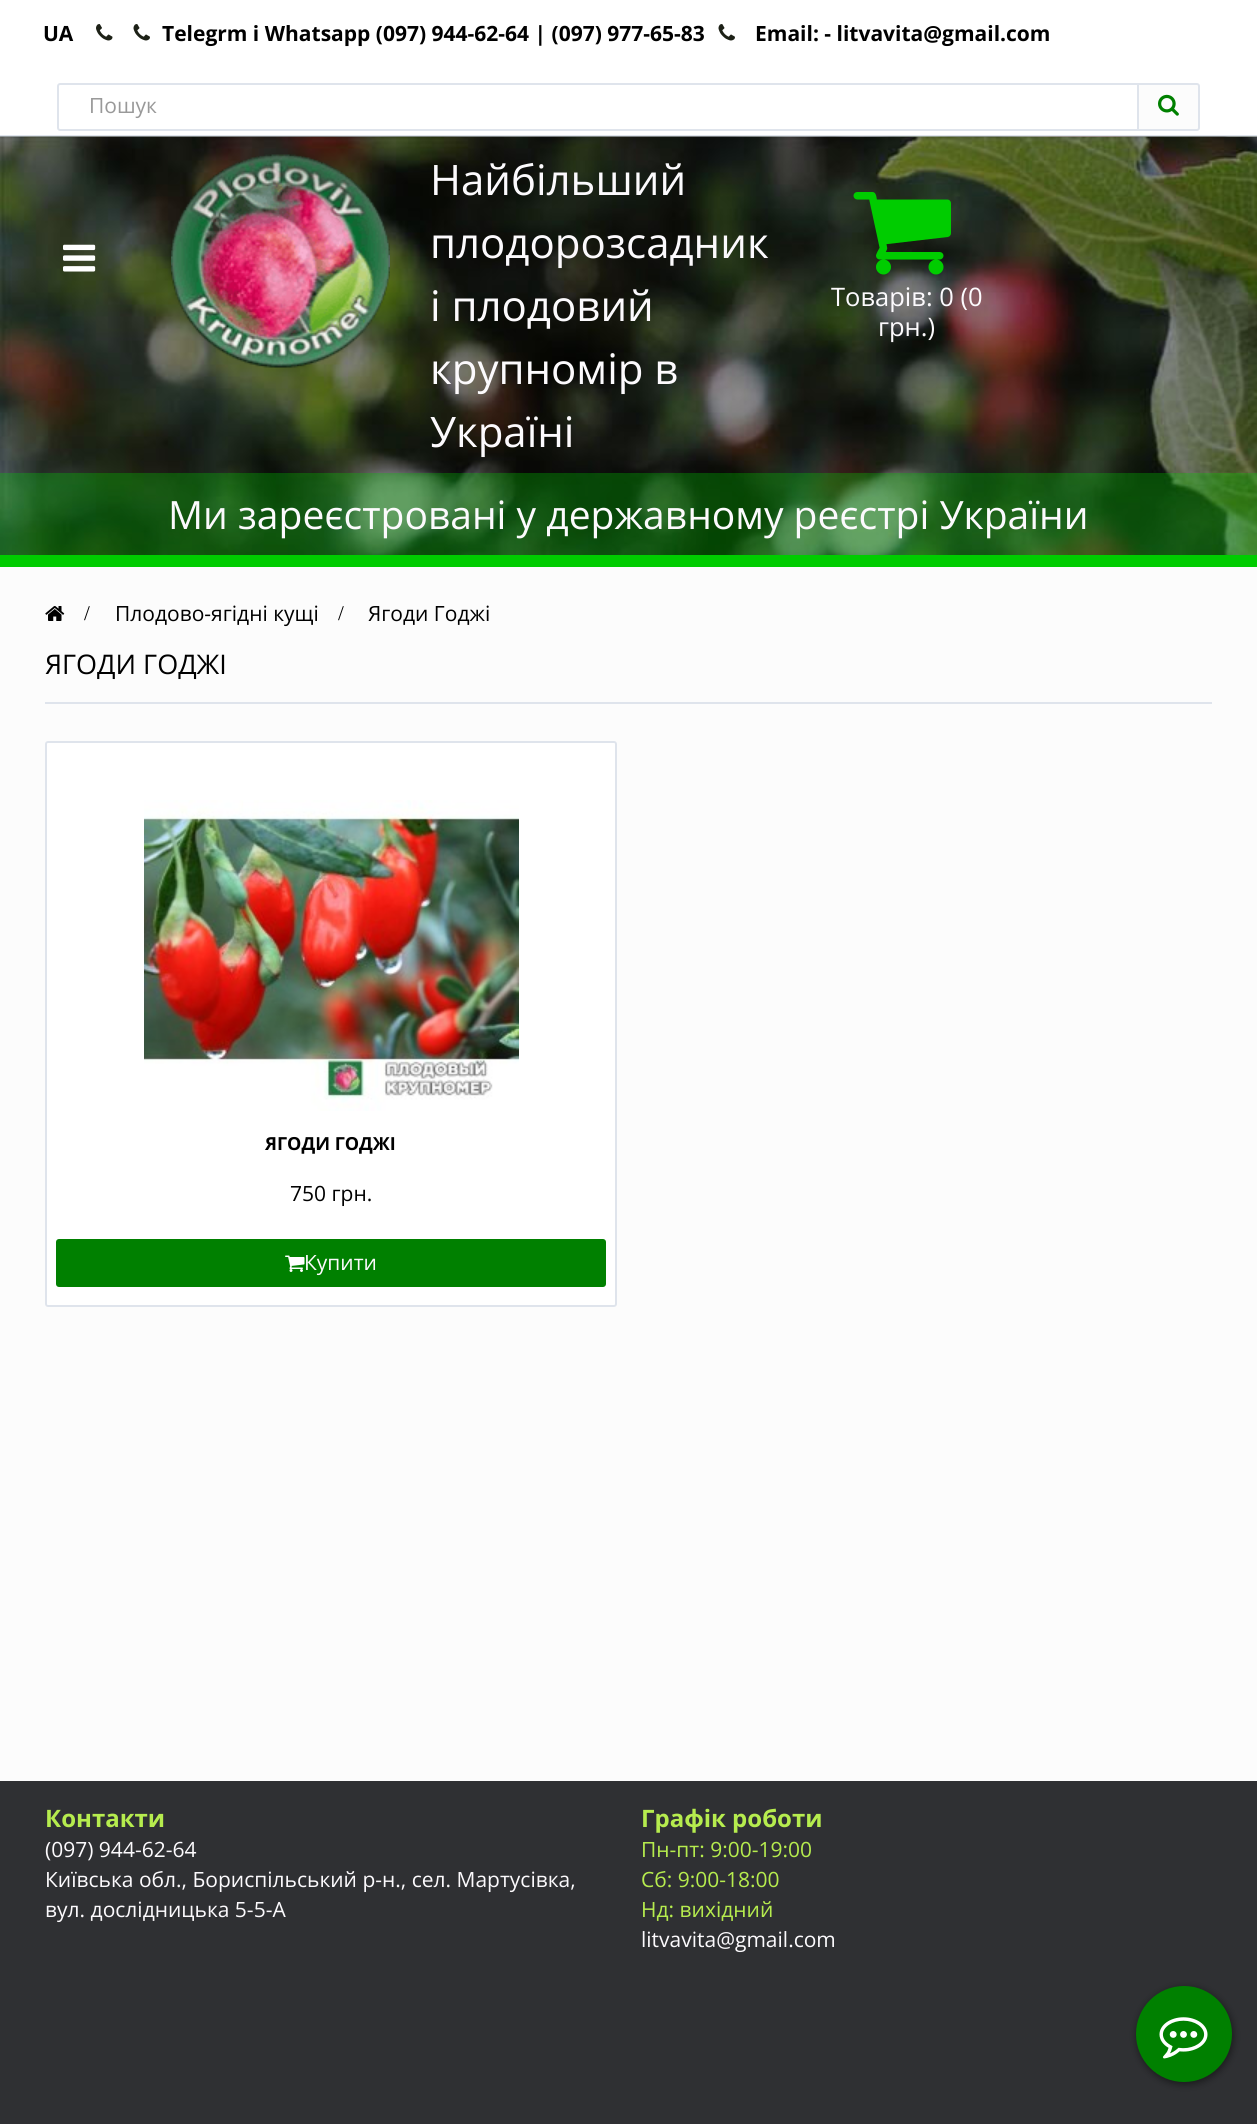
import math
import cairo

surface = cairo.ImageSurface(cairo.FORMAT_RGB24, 1257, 2124)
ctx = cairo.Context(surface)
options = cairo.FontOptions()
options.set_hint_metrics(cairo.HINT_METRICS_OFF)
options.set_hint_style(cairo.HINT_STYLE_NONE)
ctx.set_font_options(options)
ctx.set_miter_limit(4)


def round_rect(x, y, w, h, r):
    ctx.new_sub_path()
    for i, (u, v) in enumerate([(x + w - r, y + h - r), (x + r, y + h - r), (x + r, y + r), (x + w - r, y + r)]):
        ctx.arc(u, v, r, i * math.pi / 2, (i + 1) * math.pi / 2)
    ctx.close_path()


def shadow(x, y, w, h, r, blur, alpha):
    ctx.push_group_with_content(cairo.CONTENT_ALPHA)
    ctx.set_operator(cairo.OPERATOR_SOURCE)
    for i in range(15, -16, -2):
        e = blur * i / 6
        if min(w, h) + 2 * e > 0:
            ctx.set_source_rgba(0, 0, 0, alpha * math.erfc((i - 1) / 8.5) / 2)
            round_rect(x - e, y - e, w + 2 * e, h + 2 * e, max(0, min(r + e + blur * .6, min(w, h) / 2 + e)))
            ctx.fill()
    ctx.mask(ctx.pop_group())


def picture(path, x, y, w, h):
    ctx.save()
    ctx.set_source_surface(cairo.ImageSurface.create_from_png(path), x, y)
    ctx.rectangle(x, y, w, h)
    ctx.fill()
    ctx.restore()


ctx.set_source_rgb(0.988, 0.988, 0.988)
ctx.paint()
ctx.set_source_rgb(1, 1, 1)
ctx.rectangle(0, 0, 1257, 135)
ctx.fill()
ctx.set_source_rgb(0.875, 0.894, 0.922)
ctx.rectangle(0, 135, 1257, 2)
ctx.fill()
ctx.select_font_face("Open Sans", cairo.FONT_SLANT_NORMAL, cairo.FONT_WEIGHT_BOLD)
ctx.set_font_size(21)
ctx.set_source_rgb(0, 0, 0)
ctx.move_to(43, 41)
ctx.show_text("UA")
picture("img1.png", 96, 24, 17, 17)
picture("img2.png", 133, 24, 17, 17)
ctx.move_to(162, 41)
ctx.show_text("Telegrm і Whatsapp (097) 944-62-64 | (097) 977-65-83")
picture("img2.png", 718, 24, 17, 17)
ctx.move_to(755, 41)
ctx.show_text("Email: - litvavita@gmail.com")
ctx.new_path()
ctx.move_to(60, 84)
ctx.line_to(1138, 84)
ctx.line_to(1138, 130)
ctx.line_to(60, 130)
ctx.curve_to(59, 130, 58, 129, 58, 128)
ctx.line_to(58, 86)
ctx.curve_to(58, 85, 59, 84, 60, 84)
ctx.close_path()
ctx.set_source_rgb(0.875, 0.894, 0.922)
ctx.stroke()
ctx.select_font_face("Open Sans")
ctx.set_source_rgb(0.6, 0.6, 0.6)
ctx.move_to(89, 113)
ctx.show_text("Пошук")
ctx.set_source_rgb(0.988, 0.988, 0.988)
ctx.new_path()
ctx.move_to(1138, 84)
ctx.line_to(1197, 84)
ctx.curve_to(1198, 84, 1199, 85, 1199, 86)
ctx.line_to(1199, 128)
ctx.curve_to(1199, 129, 1198, 130, 1197, 130)
ctx.line_to(1138, 130)
ctx.close_path()
ctx.fill_preserve()
ctx.set_source_rgb(0.875, 0.894, 0.922)
ctx.stroke()
picture("img3.png", 1158, 94, 21, 22)
picture("img4.png", 0, 136, 1257, 419)
picture("img5.png", 63, 244, 33, 28)
picture("img6.png", 171, 154, 219, 214)
ctx.set_font_size(42)
ctx.set_source_rgb(0.988, 0.98, 0.992)
ctx.move_to(430, 195)
ctx.show_text("Найбільший")
ctx.move_to(430, 258)
ctx.show_text("плодорозсадник")
ctx.move_to(430, 321)
ctx.show_text("і плодовий")
ctx.move_to(430, 384)
ctx.show_text("крупномір в")
ctx.move_to(430, 447)
ctx.show_text("Україні")
picture("img7.png", 853, 192, 98, 83)
ctx.set_font_size(25.5)
ctx.move_to(831, 306)
ctx.show_text("Товарів: 0 (0")
ctx.move_to(878, 336)
ctx.show_text("грн.)")
ctx.set_source_rgba(0, 0.8, 0, 0.31)
ctx.rectangle(0, 473, 1257, 82)
ctx.fill()
ctx.set_font_size(39)
ctx.set_source_rgb(0.988, 0.98, 0.992)
ctx.move_to(168, 529)
ctx.show_text("Ми зареєстровані у державному реєстрі України")
ctx.set_source_rgb(0, 0.8, 0)
ctx.rectangle(0, 555, 1257, 12)
ctx.fill()
picture("img8.png", 45, 606, 20, 15)
ctx.select_font_face("Liberation Serif")
ctx.set_font_size(21)
ctx.set_source_rgb(0, 0, 0)
ctx.move_to(84, 620)
ctx.show_text("/")
ctx.select_font_face("Open Sans")
ctx.move_to(115, 621)
ctx.show_text("Плодово-ягідні кущі")
ctx.select_font_face("Liberation Serif")
ctx.move_to(338, 620)
ctx.show_text("/")
ctx.select_font_face("Open Sans")
ctx.move_to(368, 621)
ctx.show_text("Ягоди Годжі")
ctx.set_source_rgb(0.875, 0.894, 0.922)
ctx.rectangle(45, 702, 1167, 2)
ctx.fill()
ctx.set_font_size(27)
ctx.set_source_rgb(0, 0, 0)
ctx.move_to(45, 674)
ctx.show_text("ЯГОДИ ГОДЖІ")
ctx.set_source_rgb(1, 1, 1)
round_rect(46, 742, 570, 564, 2)
ctx.fill_preserve()
ctx.set_source_rgb(0.875, 0.894, 0.922)
ctx.stroke()
picture("img9.png", 144, 800, 375, 311)
ctx.select_font_face("Open Sans", cairo.FONT_SLANT_NORMAL, cairo.FONT_WEIGHT_BOLD)
ctx.set_font_size(18)
ctx.set_source_rgb(0, 0, 0)
ctx.move_to(265, 1150)
ctx.show_text("ЯГОДИ ГОДЖІ")
ctx.select_font_face("Open Sans")
ctx.set_font_size(21)
ctx.move_to(290, 1201)
ctx.show_text("750 грн.")
ctx.set_source_rgb(0, 0.502, 0)
round_rect(57, 1240, 548, 46, 2)
ctx.fill_preserve()
ctx.stroke()
picture("img10.png", 285, 1255, 20, 17)
ctx.set_source_rgb(0.988, 0.98, 0.992)
ctx.move_to(304, 1270)
ctx.show_text("Купити")
ctx.set_source_rgb(0.184, 0.188, 0.2)
ctx.rectangle(0, 1781, 1257, 343)
ctx.fill()
ctx.select_font_face("Open Sans", cairo.FONT_SLANT_NORMAL, cairo.FONT_WEIGHT_BOLD)
ctx.set_font_size(24)
ctx.set_source_rgb(0.714, 0.922, 0.306)
ctx.move_to(45, 1827)
ctx.show_text("Контакти")
ctx.select_font_face("Open Sans")
ctx.set_font_size(21)
ctx.set_source_rgb(0.988, 0.98, 0.992)
ctx.move_to(45, 1857)
ctx.show_text("(097) 944-62-64")
ctx.move_to(45, 1887)
ctx.show_text("Київська обл., Бориспільський р-н., сел. Мартусівка,")
ctx.move_to(45, 1917)
ctx.show_text("вул. дослідницька 5-5-А")
ctx.select_font_face("Open Sans", cairo.FONT_SLANT_NORMAL, cairo.FONT_WEIGHT_BOLD)
ctx.set_font_size(24)
ctx.set_source_rgb(0.714, 0.922, 0.306)
ctx.move_to(641, 1827)
ctx.show_text("Графік роботи")
ctx.select_font_face("Open Sans")
ctx.set_font_size(21)
ctx.move_to(641, 1857)
ctx.show_text("Пн-пт: 9:00-19:00")
ctx.move_to(641, 1887)
ctx.show_text("Сб: 9:00-18:00")
ctx.move_to(641, 1917)
ctx.show_text("Нд: вихідний")
ctx.set_source_rgb(0.988, 0.98, 0.992)
ctx.move_to(641, 1947)
ctx.show_text("litvavita@gmail.com")
ctx.set_source_rgb(0, 0, 0)
shadow(1137, 1988, 96, 96, 48, 4, 0.5)
ctx.set_source_rgb(0, 0.502, 0)
ctx.arc(1184, 2034, 48, 0, 2 * math.pi)
ctx.fill()
picture("img11.png", 1159, 2017, 49, 42)
surface.write_to_png("page.png")
